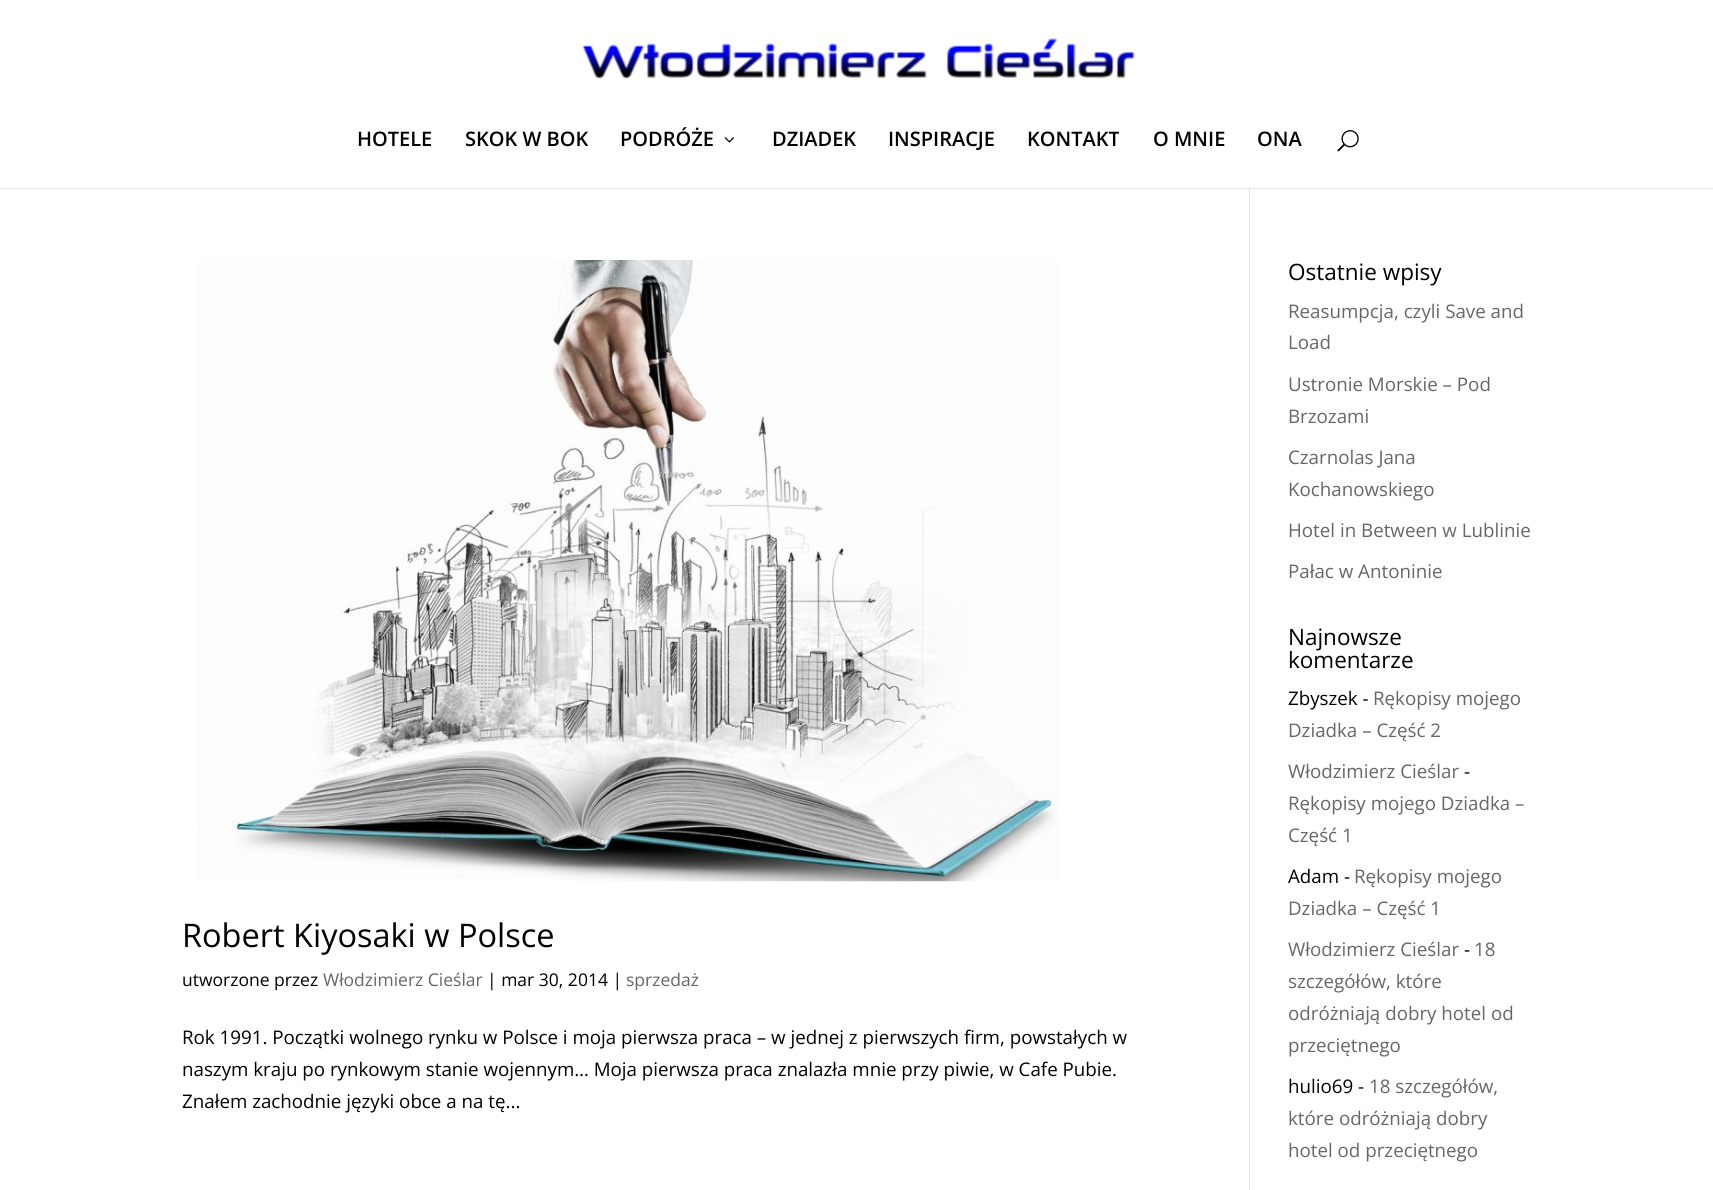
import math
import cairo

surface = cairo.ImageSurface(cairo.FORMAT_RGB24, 1713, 1190)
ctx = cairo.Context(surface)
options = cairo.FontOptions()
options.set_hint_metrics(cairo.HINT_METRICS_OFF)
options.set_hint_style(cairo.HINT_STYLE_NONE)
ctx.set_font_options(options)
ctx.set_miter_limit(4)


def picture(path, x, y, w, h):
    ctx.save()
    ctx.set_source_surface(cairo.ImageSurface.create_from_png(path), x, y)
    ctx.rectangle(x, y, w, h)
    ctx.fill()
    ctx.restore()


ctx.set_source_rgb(1, 1, 1)
ctx.paint()
ctx.set_source_rgb(0.886, 0.886, 0.886)
ctx.rectangle(1249, 188, 1, 1002)
ctx.fill()
ctx.set_source_rgba(0, 0, 0, 0.1)
ctx.new_path()
ctx.move_to(0, 188)
ctx.line_to(0, 189)
ctx.line_to(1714, 189)
ctx.line_to(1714, 1)
ctx.line_to(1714, 188)
ctx.close_path()
ctx.fill()
picture("img1.png", 582, 38, 553, 41)
ctx.select_font_face("Open Sans SemiBold")
ctx.set_font_size(20)
ctx.set_source_rgb(0, 0, 0)
ctx.move_to(357, 146)
ctx.show_text("HOTELE")
ctx.move_to(465, 146)
ctx.show_text("SKOK W BOK")
ctx.move_to(620, 146)
ctx.show_text("PODRÓŻE")
picture("img2.png", 724, 137, 10, 6)
ctx.move_to(772, 146)
ctx.show_text("DZIADEK")
ctx.move_to(888, 146)
ctx.show_text("INSPIRACJE")
ctx.move_to(1027, 146)
ctx.show_text("KONTAKT")
ctx.move_to(1153, 146)
ctx.show_text("O MNIE")
ctx.move_to(1257, 146)
ctx.show_text("ONA")
picture("img3.png", 1337, 130, 22, 22)
picture("img4.png", 197, 260, 862, 622)
ctx.select_font_face("Open Sans")
ctx.set_font_size(32.5)
ctx.move_to(182, 947)
ctx.show_text("Robert Kiyosaki w Polsce")
ctx.set_font_size(17.5)
ctx.move_to(182, 986)
ctx.show_text("utworzone przez")
ctx.set_source_rgb(0.4, 0.4, 0.4)
ctx.move_to(323, 986)
ctx.show_text("Włodzimierz Cieślar")
ctx.set_source_rgb(0, 0, 0)
ctx.move_to(487, 986)
ctx.show_text("| mar 30, 2014 |")
ctx.set_source_rgb(0.4, 0.4, 0.4)
ctx.move_to(626, 986)
ctx.show_text("sprzedaż")
ctx.set_font_size(18.75)
ctx.set_source_rgb(0, 0, 0)
ctx.move_to(182, 1044)
ctx.show_text("Rok 1991. Początki wolnego rynku w Polsce i moja pierwsza praca – w jednej z pierwszych firm, powstałych w")
ctx.move_to(182, 1076)
ctx.show_text("naszym kraju po rynkowym stanie wojennym… Moja pierwsza praca znalazła mnie przy piwie, w Cafe Pubie.")
ctx.move_to(182, 1108)
ctx.show_text("Znałem zachodnie języki obce a na tę...")
ctx.set_font_size(22.5)
ctx.move_to(1288, 280)
ctx.show_text("Ostatnie wpisy")
ctx.set_font_size(18.75)
ctx.set_source_rgb(0.4, 0.4, 0.4)
ctx.move_to(1288, 318)
ctx.show_text("Reasumpcja, czyli Save and")
ctx.move_to(1288, 349)
ctx.show_text("Load")
ctx.move_to(1288, 391)
ctx.show_text("Ustronie Morskie – Pod")
ctx.move_to(1288, 423)
ctx.show_text("Brzozami")
ctx.move_to(1288, 464)
ctx.show_text("Czarnolas Jana")
ctx.move_to(1288, 496)
ctx.show_text("Kochanowskiego")
ctx.move_to(1288, 537)
ctx.show_text("Hotel in Between w Lublinie")
ctx.move_to(1288, 578)
ctx.show_text("Pałac w Antoninie")
ctx.set_font_size(22.5)
ctx.set_source_rgb(0, 0, 0)
ctx.move_to(1288, 645)
ctx.show_text("Najnowsze")
ctx.move_to(1288, 668)
ctx.show_text("komentarze")
ctx.set_font_size(18.75)
ctx.move_to(1288, 705)
ctx.show_text("Zbyszek -")
ctx.set_source_rgb(0.4, 0.4, 0.4)
ctx.move_to(1373, 705)
ctx.show_text("Rękopisy mojego")
ctx.move_to(1288, 737)
ctx.show_text("Dziadka – Część 2")
ctx.move_to(1288, 778)
ctx.show_text("Włodzimierz Cieślar")
ctx.set_source_rgb(0, 0, 0)
ctx.move_to(1464, 778)
ctx.show_text("-")
ctx.set_source_rgb(0.4, 0.4, 0.4)
ctx.move_to(1288, 810)
ctx.show_text("Rękopisy mojego Dziadka –")
ctx.move_to(1288, 842)
ctx.show_text("Część 1")
ctx.set_source_rgb(0, 0, 0)
ctx.move_to(1288, 883)
ctx.show_text("Adam -")
ctx.set_source_rgb(0.4, 0.4, 0.4)
ctx.move_to(1354, 883)
ctx.show_text("Rękopisy mojego")
ctx.move_to(1288, 915)
ctx.show_text("Dziadka – Część 1")
ctx.move_to(1288, 956)
ctx.show_text("Włodzimierz Cieślar")
ctx.set_source_rgb(0, 0, 0)
ctx.move_to(1464, 956)
ctx.show_text("-")
ctx.set_source_rgb(0.4, 0.4, 0.4)
ctx.move_to(1474, 956)
ctx.show_text("18")
ctx.move_to(1288, 988)
ctx.show_text("szczegółów, które")
ctx.move_to(1288, 1020)
ctx.show_text("odróżniają dobry hotel od")
ctx.move_to(1288, 1052)
ctx.show_text("przeciętnego")
ctx.set_source_rgb(0, 0, 0)
ctx.move_to(1288, 1093)
ctx.show_text("hulio69 -")
ctx.set_source_rgb(0.4, 0.4, 0.4)
ctx.move_to(1369, 1093)
ctx.show_text("18 szczegółów,")
ctx.move_to(1288, 1125)
ctx.show_text("które odróżniają dobry")
ctx.move_to(1288, 1157)
ctx.show_text("hotel od przeciętnego")
surface.write_to_png("page.png")
